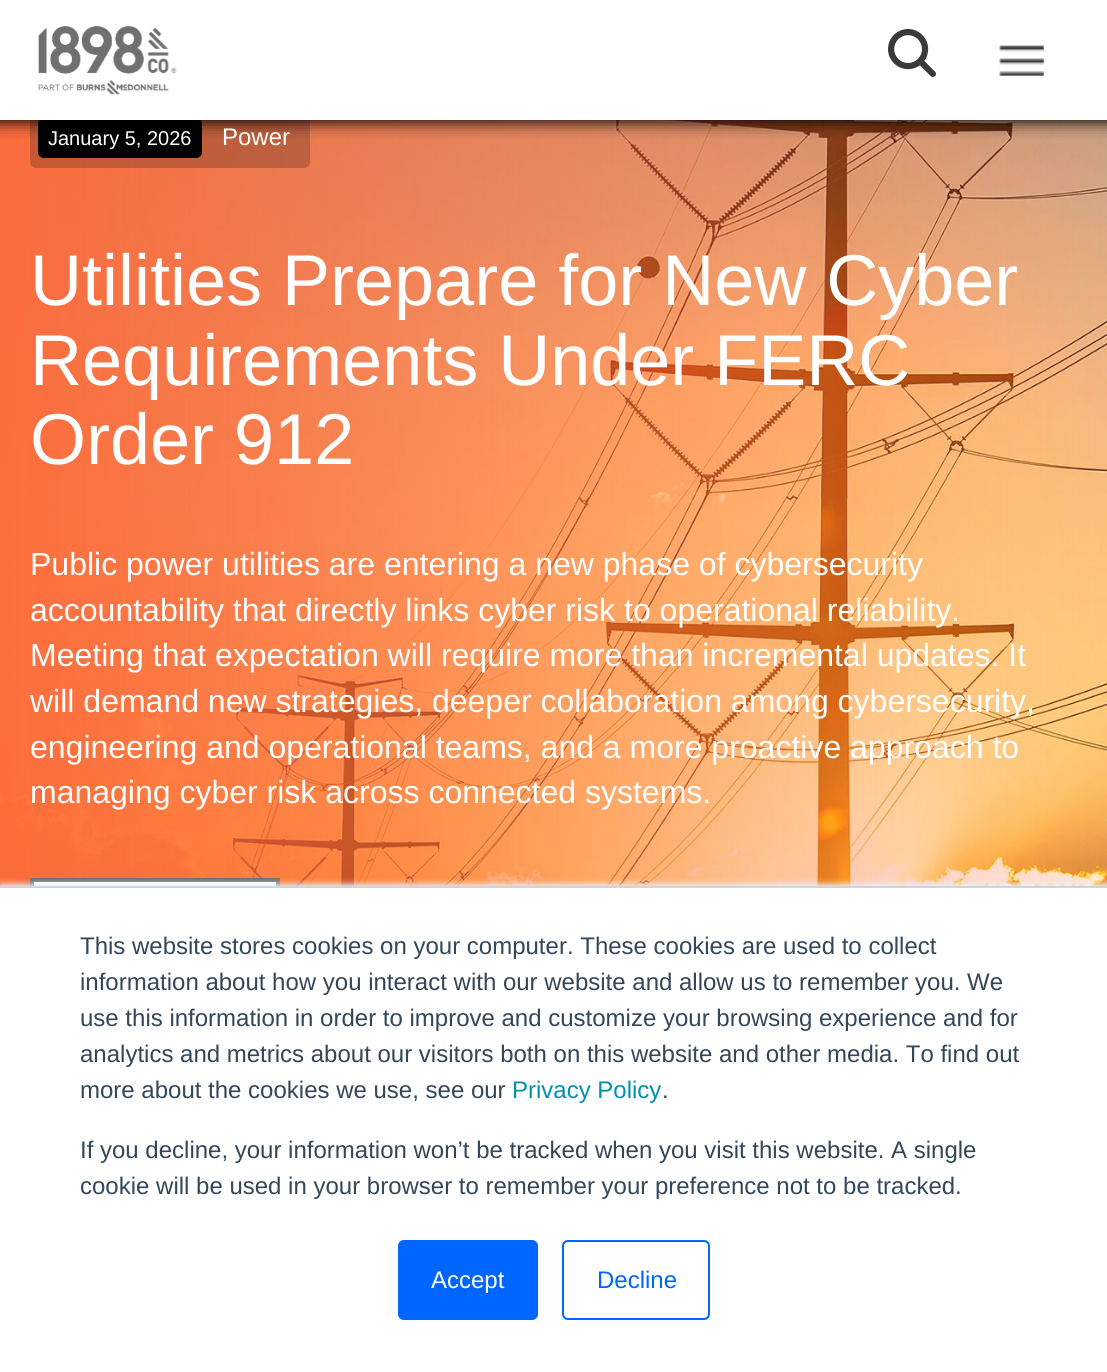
import math
import cairo

surface = cairo.ImageSurface(cairo.FORMAT_RGB24, 1107, 1372)
ctx = cairo.Context(surface)
options = cairo.FontOptions()
options.set_hint_metrics(cairo.HINT_METRICS_OFF)
options.set_hint_style(cairo.HINT_STYLE_NONE)
ctx.set_font_options(options)
ctx.set_miter_limit(4)


def round_rect(x, y, w, h, r):
    ctx.new_sub_path()
    for i, (u, v) in enumerate([(x + w - r, y + h - r), (x + r, y + h - r), (x + r, y + r), (x + w - r, y + r)]):
        ctx.arc(u, v, r, i * math.pi / 2, (i + 1) * math.pi / 2)
    ctx.close_path()


def shadow(x, y, w, h, r, blur, alpha):
    ctx.push_group_with_content(cairo.CONTENT_ALPHA)
    ctx.set_operator(cairo.OPERATOR_SOURCE)
    for i in range(15, -16, -2):
        e = blur * i / 6
        if min(w, h) + 2 * e > 0:
            ctx.set_source_rgba(0, 0, 0, alpha * math.erfc((i - 1) / 8.5) / 2)
            round_rect(x - e, y - e, w + 2 * e, h + 2 * e, max(0, min(r + e + blur * .6, min(w, h) / 2 + e)))
            ctx.fill()
    ctx.mask(ctx.pop_group())


def picture(path, x, y, w, h):
    ctx.save()
    ctx.set_source_surface(cairo.ImageSurface.create_from_png(path), x, y)
    ctx.rectangle(x, y, w, h)
    ctx.fill()
    ctx.restore()


ctx.set_source_rgb(1, 1, 1)
ctx.paint()
picture("img4.png", 0, 120, 1107, 766)
ctx.set_source_rgba(0, 0, 0, 0.2)
round_rect(30, 106, 280, 62, 6)
ctx.fill()
ctx.set_source_rgb(0, 0, 0)
round_rect(38, 118, 164, 40, 6)
ctx.fill()
ctx.set_source_rgb(1, 1, 1)
ctx.rectangle(30, 106, 280, 14)
ctx.fill()
ctx.save()
ctx.rectangle(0, 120, 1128, 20)
ctx.clip()
ctx.set_source_rgb(0, 0, 0)
shadow(-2, 118, 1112, 4, 0, 8, 1)
ctx.restore()
picture("img1.png", 38, 26, 139, 69)
picture("img2.png", 888, 29, 48, 48)
picture("img3.png", 999, 45, 45, 31)
ctx.select_font_face("Liberation Sans")
ctx.set_font_size(20)
ctx.move_to(48, 145)
ctx.show_text("January 5, 2026")
ctx.set_font_size(24)
ctx.move_to(222, 145)
ctx.show_text("Power")
ctx.set_font_size(72)
ctx.move_to(30, 305)
ctx.show_text("Utilities Prepare for New Cyber")
ctx.move_to(30, 385)
ctx.show_text("Requirements Under FERC")
ctx.move_to(30, 464)
ctx.show_text("Order 912")
ctx.set_font_size(32)
ctx.move_to(30, 575)
ctx.show_text("Public power utilities are entering a new phase of cybersecurity")
ctx.move_to(30, 621)
ctx.show_text("accountability that directly links cyber risk to operational reliability.")
ctx.move_to(30, 666)
ctx.show_text("Meeting that expectation will require more than incremental updates. It")
ctx.move_to(30, 712)
ctx.show_text("will demand new strategies, deeper collaboration among cybersecurity,")
ctx.move_to(30, 758)
ctx.show_text("engineering and operational teams, and a more proactive approach to")
ctx.move_to(30, 803)
ctx.show_text("managing cyber risk across connected systems.")
ctx.rectangle(34, 882, 242, 4)
ctx.fill()
ctx.rectangle(32, 880, 246, 66)
ctx.set_source_rgb(0.439, 0.439, 0.439)
ctx.set_line_width(4)
ctx.stroke()
ctx.set_source_rgb(0.918, 0.941, 0.965)
shadow(0, 884, 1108, 486, 0, 3, 1)
ctx.set_source_rgb(1, 1, 1)
ctx.rectangle(0, 888, 1107, 484)
ctx.fill()
ctx.set_source_rgb(0.796, 0.839, 0.886)
ctx.rectangle(0, 886, 1107, 2)
ctx.fill()
ctx.set_font_size(24)
ctx.set_source_rgb(0.2, 0.278, 0.357)
ctx.move_to(80, 954)
ctx.show_text("This website stores cookies on your computer. These cookies are used to collect")
ctx.move_to(80, 990)
ctx.show_text("information about how you interact with our website and allow us to remember you. We")
ctx.move_to(80, 1026)
ctx.show_text("use this information in order to improve and customize your browsing experience and for")
ctx.move_to(80, 1062)
ctx.show_text("analytics and metrics about our visitors both on this website and other media. To find out")
ctx.move_to(80, 1098)
ctx.show_text("more about the cookies we use, see our")
ctx.set_source_rgb(0, 0.569, 0.682)
ctx.move_to(512, 1098)
ctx.show_text("Privacy Policy")
ctx.set_source_rgb(0.2, 0.278, 0.357)
ctx.move_to(662, 1098)
ctx.show_text(".")
ctx.move_to(80, 1158)
ctx.show_text("If you decline, your information won’t be tracked when you visit this website. A single")
ctx.move_to(80, 1194)
ctx.show_text("cookie will be used in your browser to remember your preference not to be tracked.")
ctx.set_source_rgb(0, 0.4, 1)
round_rect(399, 1241, 138, 78, 5)
ctx.fill_preserve()
ctx.set_line_width(2)
ctx.stroke()
ctx.set_source_rgb(1, 1, 1)
ctx.move_to(431, 1288)
ctx.show_text("Accept")
round_rect(563, 1241, 146, 78, 5)
ctx.set_source_rgb(0, 0.4, 1)
ctx.stroke()
ctx.move_to(597, 1288)
ctx.show_text("Decline")
surface.write_to_png("page.png")
